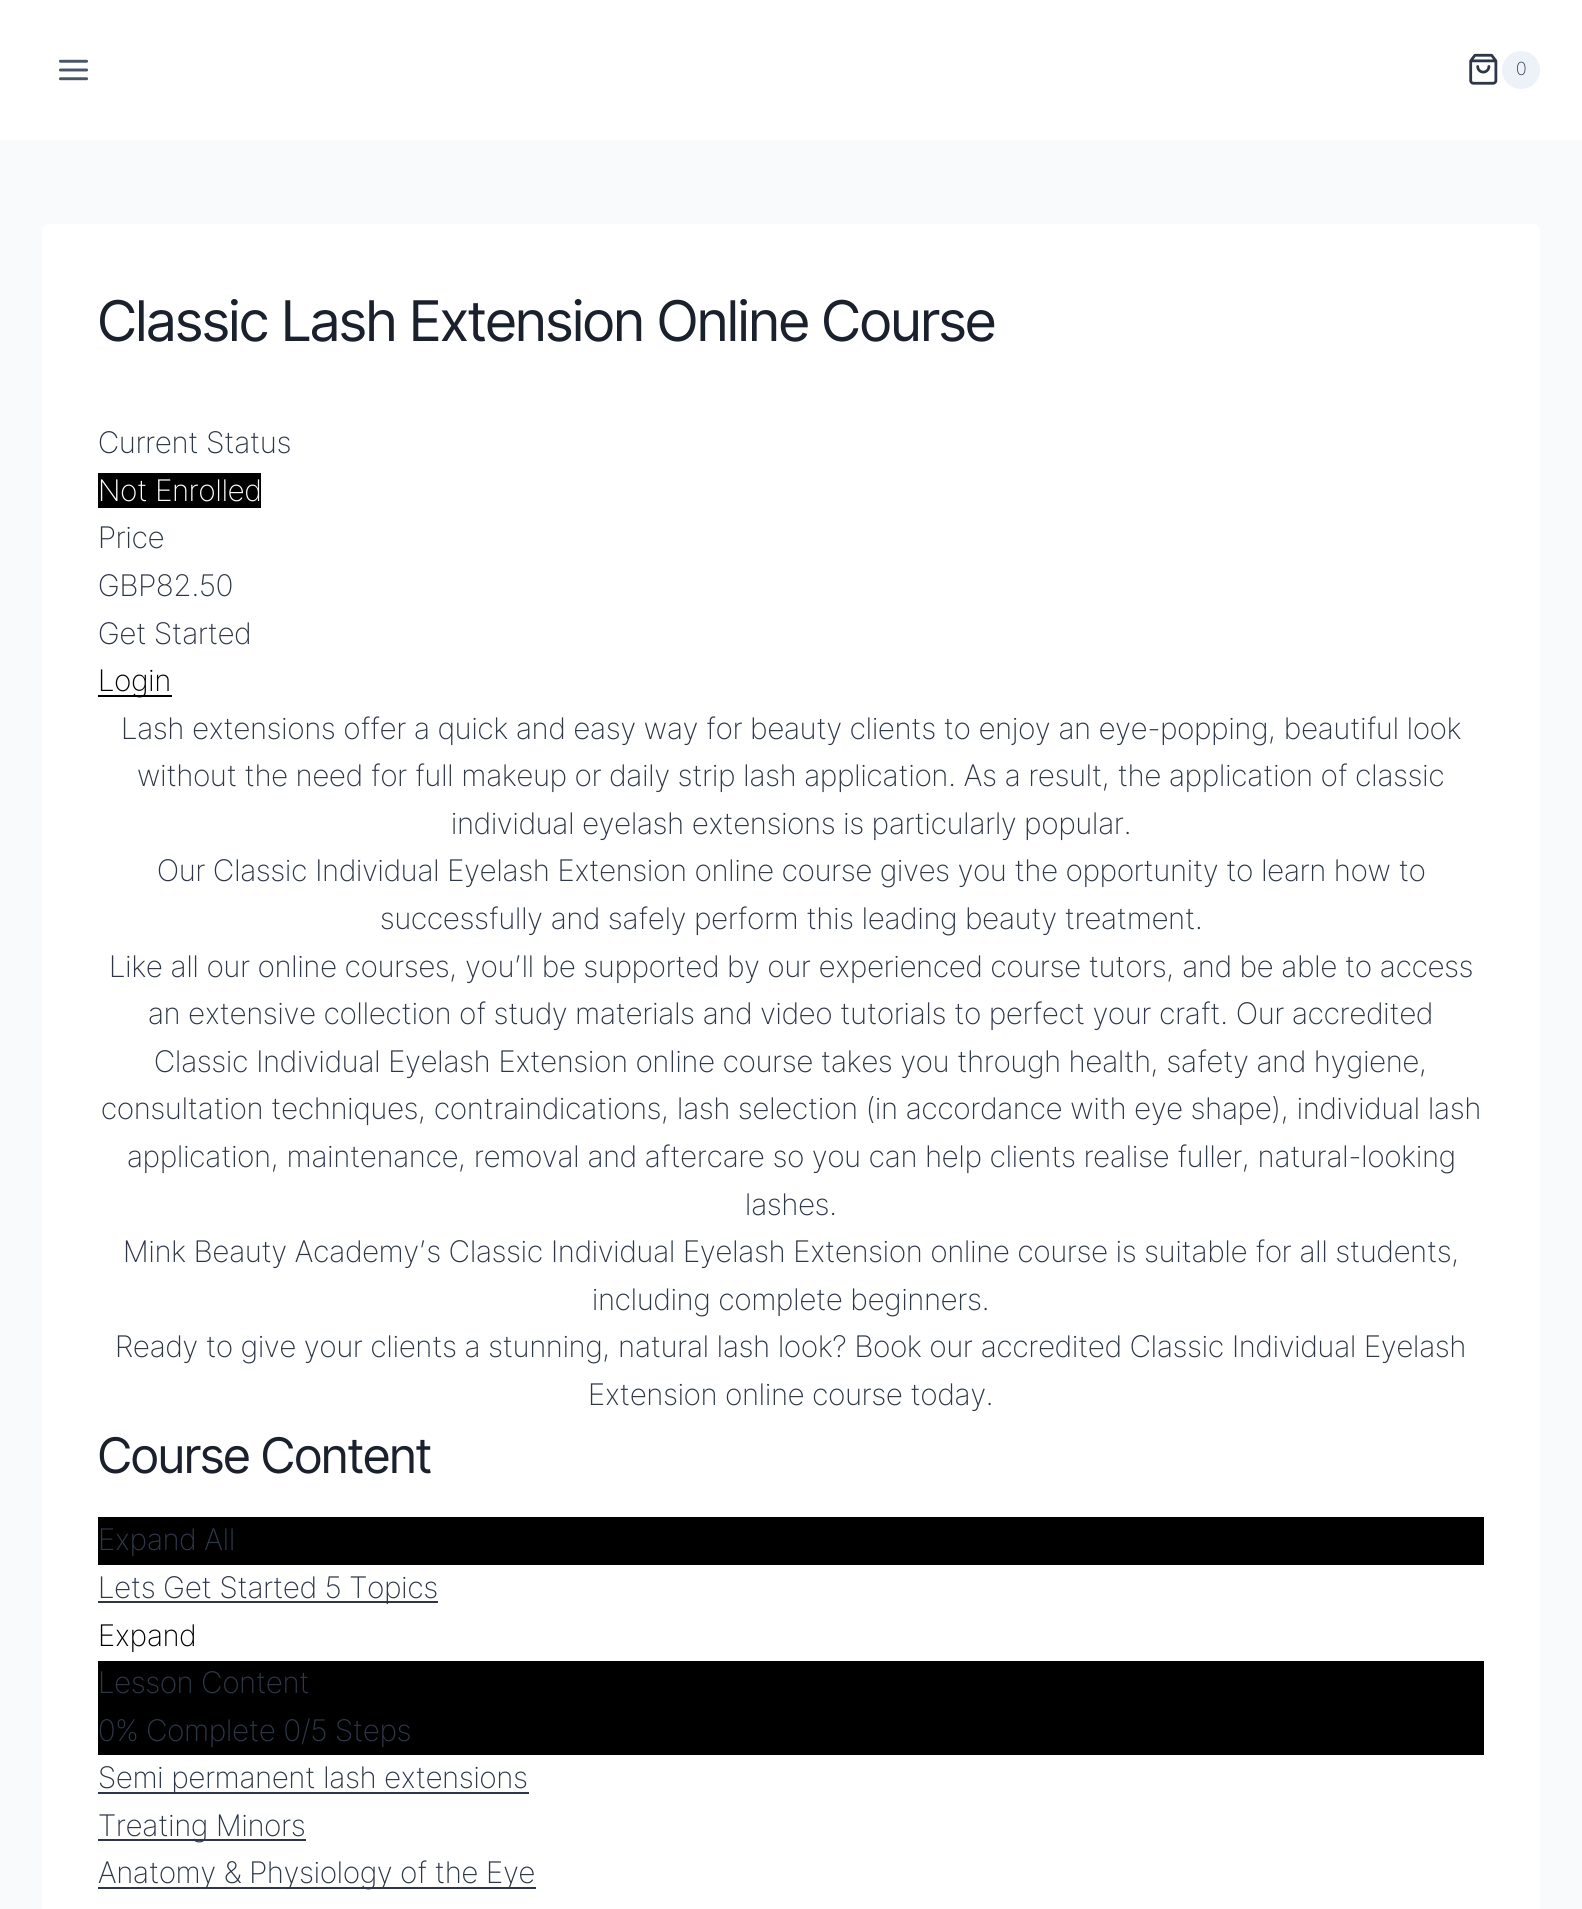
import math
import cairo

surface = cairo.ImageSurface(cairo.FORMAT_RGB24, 1582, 1909)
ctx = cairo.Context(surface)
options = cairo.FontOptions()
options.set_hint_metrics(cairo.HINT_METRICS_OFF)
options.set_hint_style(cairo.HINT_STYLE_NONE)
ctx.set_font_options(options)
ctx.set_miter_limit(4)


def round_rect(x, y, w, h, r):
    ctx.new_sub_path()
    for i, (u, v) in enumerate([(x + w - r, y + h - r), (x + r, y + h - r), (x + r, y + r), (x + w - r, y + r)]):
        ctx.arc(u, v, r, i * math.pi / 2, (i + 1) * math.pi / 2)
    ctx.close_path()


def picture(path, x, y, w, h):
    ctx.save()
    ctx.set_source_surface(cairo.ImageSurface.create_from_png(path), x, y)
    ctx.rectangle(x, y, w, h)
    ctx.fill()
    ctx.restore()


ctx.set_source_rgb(0.969, 0.98, 0.988)
ctx.paint()
ctx.set_source_rgb(1, 1, 1)
ctx.rectangle(0, 0, 1582, 140)
ctx.fill()
picture("img1.png", 58, 59, 31, 22)
picture("img2.png", 1469, 53, 29, 32)
ctx.set_source_rgb(0.929, 0.949, 0.969)
ctx.arc(1521, 70, 19, 0, 2 * math.pi)
ctx.fill()
ctx.select_font_face("Inter Tight ExtraLight")
ctx.set_font_size(18)
ctx.set_source_rgb(0.176, 0.216, 0.282)
ctx.move_to(1516, 75)
ctx.show_text("0")
ctx.set_source_rgb(1, 1, 1)
round_rect(42, 224, 1498, 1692, 7)
ctx.fill()
ctx.select_font_face("Inter Tight")
ctx.set_font_size(56)
ctx.set_source_rgb(0.102, 0.125, 0.173)
ctx.move_to(98, 341)
ctx.show_text("Classic Lash Extension Online Course")
ctx.select_font_face("Inter Tight ExtraLight")
ctx.set_font_size(29.75)
ctx.set_source_rgb(0.176, 0.216, 0.282)
ctx.move_to(98, 453)
ctx.show_text("Current Status")
ctx.set_source_rgb(0, 0, 0)
ctx.rectangle(98, 473, 163, 35)
ctx.fill()
ctx.set_source_rgb(1, 1, 1)
ctx.move_to(98, 501)
ctx.show_text("Not Enrolled")
ctx.set_source_rgb(0.176, 0.216, 0.282)
ctx.move_to(98, 548)
ctx.show_text("Price")
ctx.move_to(98, 596)
ctx.show_text("GBP82.50")
ctx.move_to(98, 644)
ctx.show_text("Get Started")
ctx.set_source_rgb(0, 0, 0)
ctx.rectangle(98, 695, 74, 2)
ctx.fill()
ctx.move_to(98, 691)
ctx.show_text("Login")
ctx.set_source_rgb(0.176, 0.216, 0.282)
ctx.move_to(121, 739)
ctx.show_text("Lash extensions offer a quick and easy way for beauty clients to enjoy an eye-popping, beautiful look")
ctx.move_to(137, 786)
ctx.show_text("without the need for full makeup or daily strip lash application. As a result, the application of classic")
ctx.move_to(451, 834)
ctx.show_text("individual eyelash extensions is particularly popular.")
ctx.move_to(157, 881)
ctx.show_text("Our Classic Individual Eyelash Extension online course gives you the opportunity to learn how to")
ctx.move_to(380, 929)
ctx.show_text("successfully and safely perform this leading beauty treatment.")
ctx.move_to(109, 977)
ctx.show_text("Like all our online courses, you’ll be supported by our experienced course tutors, and be able to access")
ctx.move_to(148, 1024)
ctx.show_text("an extensive collection of study materials and video tutorials to perfect your craft. Our accredited")
ctx.move_to(154, 1072)
ctx.show_text("Classic Individual Eyelash Extension online course takes you through health, safety and hygiene,")
ctx.move_to(101, 1119)
ctx.show_text("consultation techniques, contraindications, lash selection (in accordance with eye shape), individual lash")
ctx.move_to(127, 1167)
ctx.show_text("application, maintenance, removal and aftercare so you can help clients realise fuller, natural-looking")
ctx.move_to(745, 1215)
ctx.show_text("lashes.")
ctx.move_to(123, 1262)
ctx.show_text("Mink Beauty Academy’s Classic Individual Eyelash Extension online course is suitable for all students,")
ctx.move_to(592, 1310)
ctx.show_text("including complete beginners.")
ctx.move_to(115, 1357)
ctx.show_text("Ready to give your clients a stunning, natural lash look? Book our accredited Classic Individual Eyelash")
ctx.move_to(588, 1405)
ctx.show_text("Extension online course today.")
ctx.select_font_face("Inter Tight")
ctx.set_font_size(49)
ctx.set_source_rgb(0.102, 0.125, 0.173)
ctx.move_to(98, 1473)
ctx.show_text("Course Content")
ctx.set_source_rgb(0, 0, 0)
ctx.rectangle(98, 1517, 1386, 48)
ctx.fill()
ctx.select_font_face("Inter Tight ExtraLight")
ctx.set_font_size(29.75)
ctx.set_source_rgb(0.176, 0.216, 0.282)
ctx.move_to(98, 1550)
ctx.show_text("Expand All")
ctx.rectangle(98, 1601, 340, 2)
ctx.fill()
ctx.move_to(98, 1598)
ctx.show_text("Lets Get Started 5 Topics")
ctx.set_source_rgb(0, 0, 0)
ctx.move_to(98, 1646)
ctx.show_text("Expand")
ctx.rectangle(98, 1661, 1386, 94)
ctx.fill()
ctx.set_source_rgb(0.176, 0.216, 0.282)
ctx.move_to(98, 1693)
ctx.show_text("Lesson Content")
ctx.move_to(98, 1741)
ctx.show_text("0% Complete 0/5 Steps")
ctx.rectangle(98, 1792, 431, 2)
ctx.fill()
ctx.move_to(98, 1788)
ctx.show_text("Semi permanent lash extensions")
ctx.rectangle(98, 1839, 208, 2)
ctx.fill()
ctx.move_to(98, 1836)
ctx.show_text("Treating Minors")
ctx.rectangle(98, 1887, 438, 2)
ctx.fill()
ctx.move_to(98, 1883)
ctx.show_text("Anatomy & Physiology of the Eye")
surface.write_to_png("page.png")
